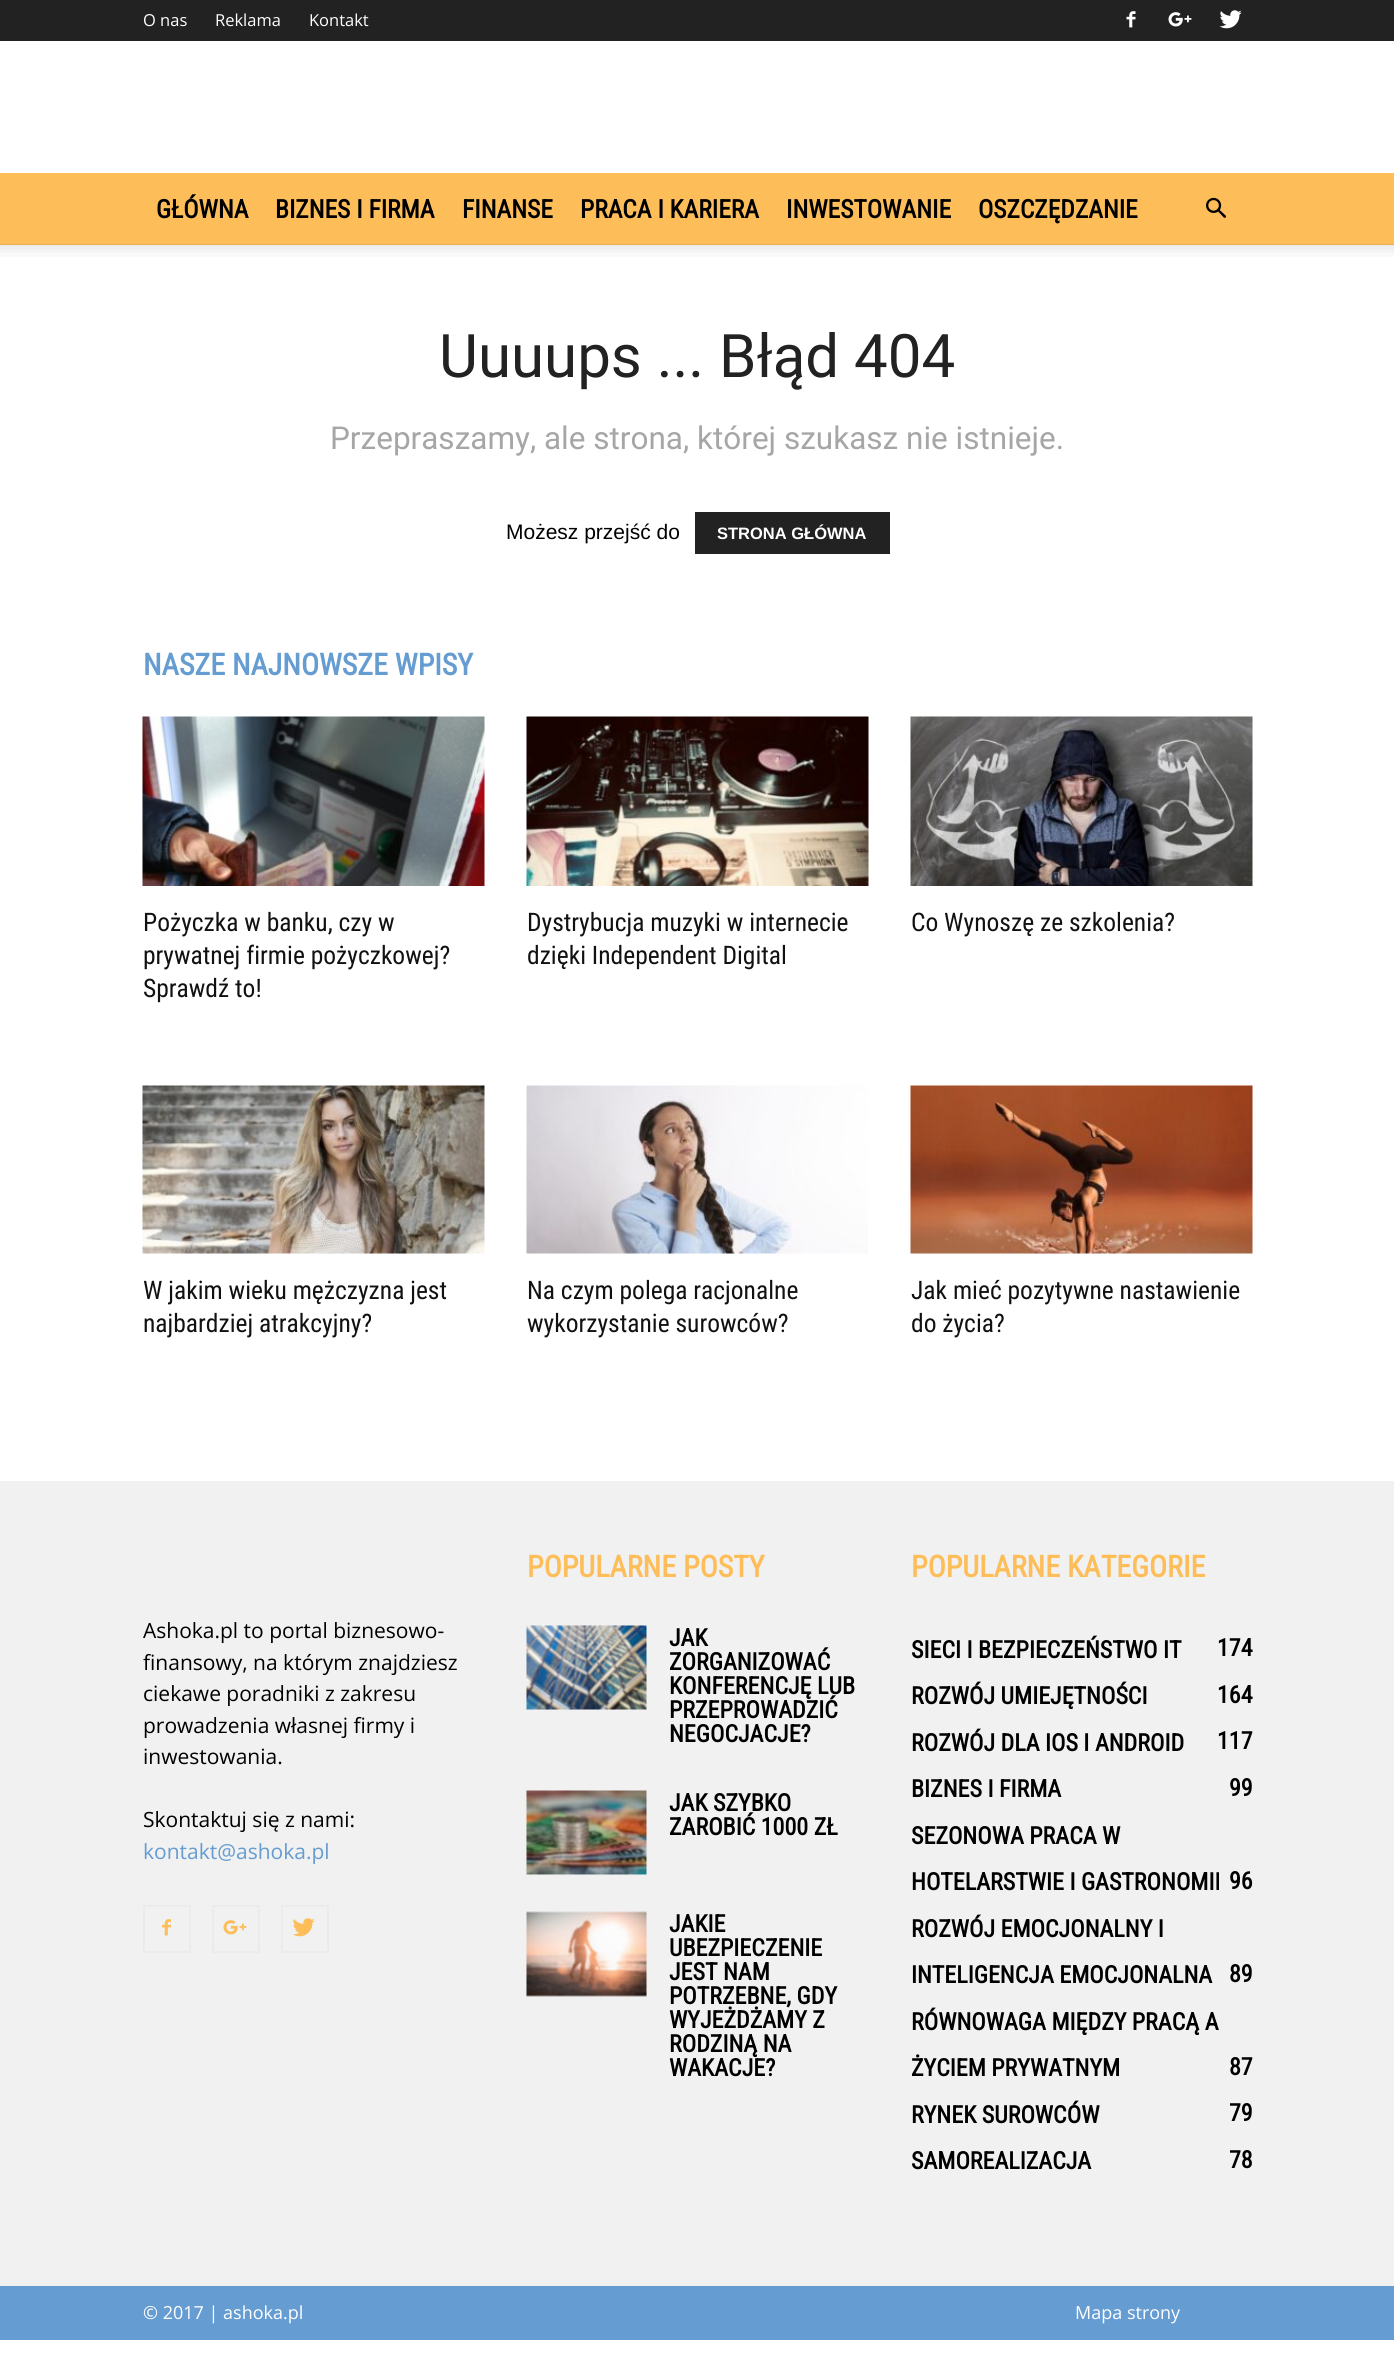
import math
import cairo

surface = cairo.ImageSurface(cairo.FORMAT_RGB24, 1394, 2360)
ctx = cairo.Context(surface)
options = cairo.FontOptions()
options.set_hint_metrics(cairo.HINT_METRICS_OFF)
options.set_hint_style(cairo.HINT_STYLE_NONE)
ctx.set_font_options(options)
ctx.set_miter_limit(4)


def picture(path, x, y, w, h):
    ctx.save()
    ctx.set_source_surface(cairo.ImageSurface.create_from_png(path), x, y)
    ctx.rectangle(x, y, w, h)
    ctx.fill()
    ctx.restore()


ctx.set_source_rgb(1, 1, 1)
ctx.paint()
ctx.set_source_rgb(0.133, 0.133, 0.133)
ctx.rectangle(0, 0, 1394, 41)
ctx.fill()
ctx.select_font_face("Open Sans")
ctx.set_font_size(16.5)
ctx.set_source_rgb(1, 1, 1)
ctx.move_to(143, 26)
ctx.show_text("O nas")
ctx.move_to(215, 26)
ctx.show_text("Reklama")
ctx.move_to(309, 26)
ctx.show_text("Kontakt")
picture("img1.png", 1126, 11, 10, 17)
picture("img2.png", 1168, 12, 24, 15)
picture("img3.png", 1219, 10, 23, 19)
ctx.set_source_rgb(0.992, 0.741, 0.349)
ctx.rectangle(0, 173, 1394, 72)
ctx.fill()
ctx.select_font_face("Roboto Condensed", cairo.FONT_SLANT_NORMAL, cairo.FONT_WEIGHT_BOLD)
ctx.set_font_size(25.5)
ctx.set_source_rgb(0, 0, 0)
ctx.move_to(156, 218)
ctx.show_text("GŁÓWNA")
ctx.move_to(275, 218)
ctx.show_text("BIZNES I FIRMA")
ctx.move_to(462, 218)
ctx.show_text("FINANSE")
ctx.move_to(580, 218)
ctx.show_text("PRACA I KARIERA")
ctx.move_to(786, 218)
ctx.show_text("INWESTOWANIE")
ctx.move_to(978, 218)
ctx.show_text("OSZCZĘDZANIE")
picture("img4.png", 1206, 197, 20, 21)
picture("img5.png", 0, 244, 1394, 13)
ctx.select_font_face("Roboto")
ctx.set_font_size(60)
ctx.set_source_rgb(0.133, 0.133, 0.133)
ctx.move_to(439, 377)
ctx.show_text("Uuuups ... Błąd 404")
ctx.set_font_size(31.5)
ctx.set_source_rgb(0.651, 0.651, 0.651)
ctx.move_to(330, 449)
ctx.show_text("Przepraszamy, ale strona, której szukasz nie istnieje.")
ctx.select_font_face("Liberation Sans")
ctx.set_font_size(21)
ctx.set_source_rgb(0, 0, 0)
ctx.move_to(506, 539)
ctx.show_text("Możesz przejść do")
ctx.set_source_rgb(0.133, 0.133, 0.133)
ctx.rectangle(695, 512, 195, 42)
ctx.fill()
ctx.select_font_face("Liberation Sans", cairo.FONT_SLANT_NORMAL, cairo.FONT_WEIGHT_BOLD)
ctx.set_font_size(16.5)
ctx.set_source_rgb(1, 1, 1)
ctx.move_to(717, 539)
ctx.show_text("STRONA GŁÓWNA")
ctx.select_font_face("Roboto Condensed", cairo.FONT_SLANT_NORMAL, cairo.FONT_WEIGHT_BOLD)
ctx.set_font_size(30)
ctx.set_source_rgb(0.396, 0.612, 0.82)
ctx.move_to(143, 675)
ctx.show_text("NASZE NAJNOWSZE WPISY")
picture("img6.png", 142, 716, 343, 170)
ctx.select_font_face("Roboto Condensed")
ctx.set_font_size(25.5)
ctx.set_source_rgb(0.067, 0.067, 0.067)
ctx.move_to(143, 931)
ctx.show_text("Pożyczka w banku, czy w")
ctx.move_to(143, 964)
ctx.show_text("prywatnej firmie pożyczkowej?")
ctx.move_to(143, 997)
ctx.show_text("Sprawdź to!")
picture("img7.png", 526, 716, 343, 170)
ctx.move_to(527, 931)
ctx.show_text("Dystrybucja muzyki w internecie")
ctx.move_to(527, 964)
ctx.show_text("dzięki Independent Digital")
picture("img8.png", 910, 716, 343, 170)
ctx.move_to(911, 931)
ctx.show_text("Co Wynoszę ze szkolenia?")
picture("img9.png", 142, 1085, 343, 169)
ctx.move_to(143, 1299)
ctx.show_text("W jakim wieku mężczyzna jest")
ctx.move_to(143, 1332)
ctx.show_text("najbardziej atrakcyjny?")
picture("img10.png", 526, 1085, 342, 169)
ctx.move_to(527, 1299)
ctx.show_text("Na czym polega racjonalne")
ctx.move_to(527, 1332)
ctx.show_text("wykorzystanie surowców?")
picture("img11.png", 910, 1085, 343, 169)
ctx.move_to(911, 1299)
ctx.show_text("Jak mieć pozytywne nastawienie")
ctx.move_to(911, 1332)
ctx.show_text("do życia?")
ctx.set_source_rgb(0.945, 0.945, 0.945)
ctx.rectangle(0, 1481, 1394, 805)
ctx.fill()
ctx.select_font_face("Open Sans")
ctx.set_font_size(21)
ctx.set_source_rgb(0, 0, 0)
ctx.move_to(143, 1638)
ctx.show_text("Ashoka.pl to portal biznesowo-")
ctx.move_to(143, 1670)
ctx.show_text("finansowy, na którym znajdziesz")
ctx.move_to(143, 1701)
ctx.show_text("ciekawe poradniki z zakresu")
ctx.move_to(143, 1733)
ctx.show_text("prowadzenia własnej firmy i")
ctx.move_to(143, 1764)
ctx.show_text("inwestowania.")
ctx.move_to(143, 1827)
ctx.show_text("Skontaktuj się z nami:")
ctx.set_source_rgb(0.396, 0.612, 0.82)
ctx.move_to(143, 1859)
ctx.show_text("kontakt@ashoka.pl")
picture("img12.png", 162, 1919, 9, 17)
ctx.rectangle(144, 1906, 46, 46)
ctx.set_source_rgb(0.918, 0.918, 0.918)
ctx.stroke()
picture("img13.png", 223, 1920, 24, 15)
ctx.rectangle(213, 1906, 46, 46)
ctx.stroke()
picture("img14.png", 292, 1918, 23, 19)
ctx.rectangle(282, 1906, 46, 46)
ctx.stroke()
ctx.select_font_face("Roboto Condensed", cairo.FONT_SLANT_NORMAL, cairo.FONT_WEIGHT_BOLD)
ctx.set_font_size(30)
ctx.set_source_rgb(0.992, 0.741, 0.349)
ctx.move_to(527, 1577)
ctx.show_text("POPULARNE POSTY")
picture("img15.png", 526, 1625, 121, 85)
ctx.set_font_size(24)
ctx.set_source_rgb(0, 0, 0)
ctx.move_to(669, 1646)
ctx.show_text("JAK")
ctx.move_to(669, 1670)
ctx.show_text("ZORGANIZOWAĆ")
ctx.move_to(669, 1694)
ctx.show_text("KONFERENCJĘ LUB")
ctx.move_to(669, 1718)
ctx.show_text("PRZEPROWADZIĆ")
ctx.move_to(669, 1742)
ctx.show_text("NEGOCJACJE?")
picture("img16.png", 526, 1790, 121, 85)
ctx.move_to(669, 1811)
ctx.show_text("JAK SZYBKO")
ctx.move_to(669, 1835)
ctx.show_text("ZAROBIĆ 1000 ZŁ")
picture("img17.png", 526, 1911, 121, 86)
ctx.move_to(669, 1932)
ctx.show_text("JAKIE")
ctx.move_to(669, 1956)
ctx.show_text("UBEZPIECZENIE")
ctx.move_to(669, 1980)
ctx.show_text("JEST NAM")
ctx.move_to(669, 2004)
ctx.show_text("POTRZEBNE, GDY")
ctx.move_to(669, 2028)
ctx.show_text("WYJEŻDŻAMY Z")
ctx.move_to(669, 2052)
ctx.show_text("RODZINĄ NA")
ctx.move_to(669, 2076)
ctx.show_text("WAKACJE?")
ctx.set_font_size(30)
ctx.set_source_rgb(0.992, 0.741, 0.349)
ctx.move_to(911, 1577)
ctx.show_text("POPULARNE KATEGORIE")
ctx.set_font_size(24)
ctx.set_source_rgb(0, 0, 0)
ctx.move_to(911, 1658)
ctx.show_text("SIECI I BEZPIECZEŃSTWO IT")
ctx.move_to(1217, 1656)
ctx.show_text("174")
ctx.move_to(911, 1704)
ctx.show_text("ROZWÓJ UMIEJĘTNOŚCI")
ctx.move_to(1217, 1703)
ctx.show_text("164")
ctx.move_to(911, 1751)
ctx.show_text("ROZWÓJ DLA IOS I ANDROID")
ctx.move_to(1217, 1749)
ctx.show_text("117")
ctx.move_to(911, 1797)
ctx.show_text("BIZNES I FIRMA")
ctx.move_to(1229, 1796)
ctx.show_text("99")
ctx.move_to(911, 1844)
ctx.show_text("SEZONOWA PRACA W")
ctx.move_to(911, 1890)
ctx.show_text("HOTELARSTWIE I GASTRONOMII")
ctx.move_to(1229, 1889)
ctx.show_text("96")
ctx.move_to(911, 1937)
ctx.show_text("ROZWÓJ EMOCJONALNY I")
ctx.move_to(911, 1983)
ctx.show_text("INTELIGENCJA EMOCJONALNA")
ctx.move_to(1229, 1982)
ctx.show_text("89")
ctx.move_to(911, 2030)
ctx.show_text("RÓWNOWAGA MIĘDZY PRACĄ A")
ctx.move_to(911, 2076)
ctx.show_text("ŻYCIEM PRYWATNYM")
ctx.move_to(1229, 2075)
ctx.show_text("87")
ctx.move_to(911, 2123)
ctx.show_text("RYNEK SUROWCÓW")
ctx.move_to(1229, 2121)
ctx.show_text("79")
ctx.move_to(911, 2169)
ctx.show_text("SAMOREALIZACJA")
ctx.move_to(1229, 2168)
ctx.show_text("78")
ctx.set_source_rgb(0.396, 0.612, 0.82)
ctx.rectangle(0, 2286, 1394, 54)
ctx.fill()
ctx.select_font_face("Open Sans")
ctx.set_font_size(18)
ctx.set_source_rgb(1, 1, 1)
ctx.move_to(143, 2319)
ctx.show_text("© 2017 | ashoka.pl")
ctx.move_to(1075, 2319)
ctx.show_text("Mapa strony")
surface.write_to_png("page.png")
